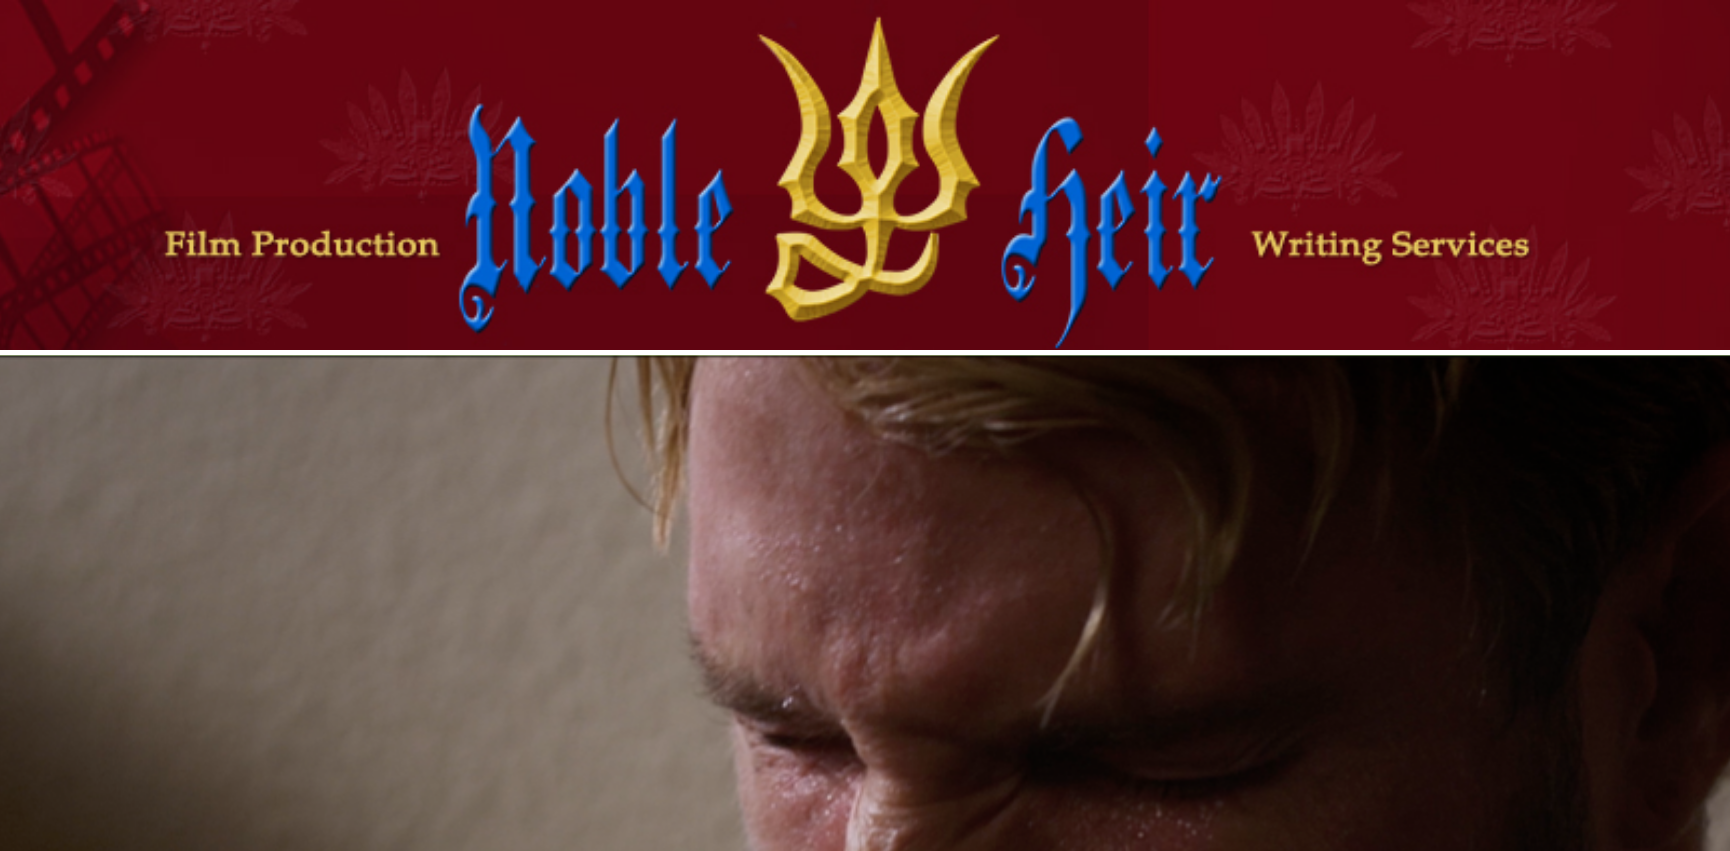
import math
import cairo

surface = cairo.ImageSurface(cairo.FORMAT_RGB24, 1730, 851)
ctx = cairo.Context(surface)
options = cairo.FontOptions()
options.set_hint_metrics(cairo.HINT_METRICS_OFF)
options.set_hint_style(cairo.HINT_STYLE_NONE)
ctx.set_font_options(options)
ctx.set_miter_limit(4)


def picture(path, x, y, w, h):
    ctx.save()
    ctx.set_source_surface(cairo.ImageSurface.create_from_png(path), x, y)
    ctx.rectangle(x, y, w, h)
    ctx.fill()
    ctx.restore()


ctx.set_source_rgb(1, 1, 1)
ctx.paint()
picture("img1.png", 0, 0, 1730, 350)
ctx.set_source_rgb(0.827, 1, 0.659)
ctx.rectangle(0, 355, 1730, 3)
ctx.fill()
picture("img2.png", 0, 355, 1730, 496)
surface.write_to_png("page.png")
